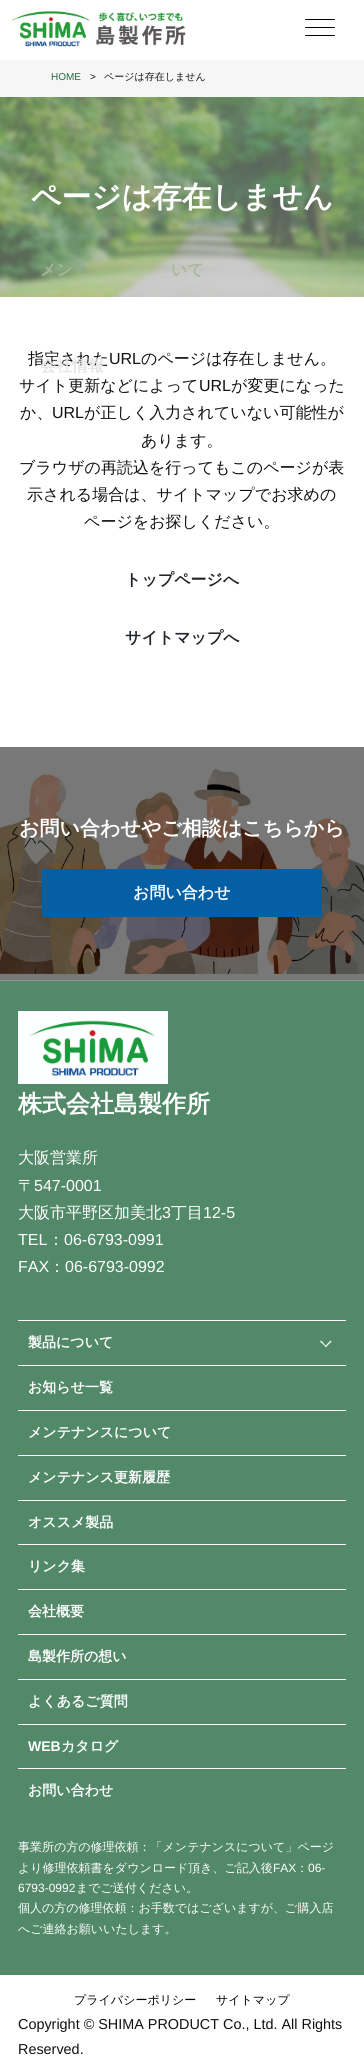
import math
import cairo

surface = cairo.ImageSurface(cairo.FORMAT_RGB24, 364, 2070)
ctx = cairo.Context(surface)
options = cairo.FontOptions()
options.set_hint_metrics(cairo.HINT_METRICS_OFF)
options.set_hint_style(cairo.HINT_STYLE_NONE)
ctx.set_font_options(options)
ctx.set_miter_limit(4)


def picture(path, x, y, w, h):
    ctx.save()
    ctx.set_source_surface(cairo.ImageSurface.create_from_png(path), x, y)
    ctx.rectangle(x, y, w, h)
    ctx.fill()
    ctx.restore()


ctx.set_source_rgb(1, 1, 1)
ctx.paint()
ctx.set_source_rgb(0.961, 0.961, 0.961)
ctx.rectangle(0, 60, 364, 37)
ctx.fill()
ctx.select_font_face("Liberation Sans")
ctx.set_font_size(10)
ctx.set_source_rgb(0.149, 0.412, 0.255)
ctx.move_to(51, 80)
ctx.show_text("HOME")
ctx.set_source_rgb(0.067, 0.067, 0.067)
ctx.move_to(90, 80)
ctx.show_text(">")
ctx.select_font_face("WenQuanYi Zen Hei Medium")
ctx.move_to(104, 80)
ctx.show_text("ページは存在しません")
picture("img1.png", 0, 97, 364, 200)
ctx.select_font_face("WenQuanYi Zen Hei", cairo.FONT_SLANT_NORMAL, cairo.FONT_WEIGHT_BOLD)
ctx.set_font_size(29.75)
ctx.set_source_rgb(1, 1, 1)
ctx.move_to(31, 207)
ctx.show_text("ページは存在しません")
ctx.select_font_face("WenQuanYi Zen Hei Medium")
ctx.set_font_size(16)
ctx.set_source_rgb(0.067, 0.067, 0.067)
ctx.move_to(28, 364)
ctx.show_text("指定された")
ctx.select_font_face("Liberation Sans")
ctx.move_to(109, 364)
ctx.show_text("URL")
ctx.select_font_face("WenQuanYi Zen Hei Medium")
ctx.move_to(141, 364)
ctx.show_text("のページは存在しません。")
ctx.move_to(19, 391)
ctx.show_text("サイト更新などによって")
ctx.select_font_face("Liberation Sans")
ctx.move_to(199, 391)
ctx.show_text("URL")
ctx.select_font_face("WenQuanYi Zen Hei Medium")
ctx.move_to(231, 391)
ctx.show_text("が変更になった")
ctx.move_to(20, 418)
ctx.show_text("か、")
ctx.select_font_face("Liberation Sans")
ctx.move_to(52, 418)
ctx.show_text("URL")
ctx.select_font_face("WenQuanYi Zen Hei Medium")
ctx.move_to(84, 418)
ctx.show_text("が正しく入力されていない可能性が")
ctx.move_to(141, 446)
ctx.show_text("あります。")
ctx.move_to(19, 473)
ctx.show_text("ブラウザの再読込を行ってもこのページが表")
ctx.move_to(27, 500)
ctx.show_text("示される場合は、サイトマップでお求めの")
ctx.move_to(84, 527)
ctx.show_text("ページをお探しください。")
ctx.select_font_face("WenQuanYi Zen Hei", cairo.FONT_SLANT_NORMAL, cairo.FONT_WEIGHT_BOLD)
ctx.set_source_rgb(0.129, 0.145, 0.161)
ctx.move_to(125, 585)
ctx.show_text("トップページへ")
ctx.move_to(125, 643)
ctx.show_text("サイトマップへ")
picture("img2.png", 11, 11, 175, 36)
ctx.set_source_rgb(0, 0, 0)
ctx.rectangle(305, 19, 30, 1)
ctx.fill()
ctx.rectangle(305, 27, 30, 1)
ctx.fill()
ctx.rectangle(305, 35, 30, 1)
ctx.fill()
ctx.set_source_rgb(0.655, 0.722, 0.596)
ctx.move_to(40, 275)
ctx.show_text("メン")
ctx.move_to(171, 275)
ctx.show_text("いて")
ctx.set_source_rgb(0.898, 0.898, 0.898)
ctx.move_to(40, 371)
ctx.show_text("会社情報")
picture("img3.png", 0, 747, 364, 234)
ctx.set_font_size(20)
ctx.set_source_rgb(1, 1, 1)
ctx.move_to(19, 835)
ctx.show_text("お問い合わせやご相談はこちらから")
ctx.set_source_rgb(0.016, 0.373, 0.643)
ctx.rectangle(42, 869, 280, 48)
ctx.fill()
ctx.set_font_size(16)
ctx.set_source_rgb(1, 1, 1)
ctx.move_to(133, 898)
ctx.show_text("お問い合わせ")
ctx.set_source_rgb(0.322, 0.537, 0.408)
ctx.rectangle(0, 981, 364, 994)
ctx.fill()
picture("img4.png", 18, 1011, 150, 73)
ctx.set_font_size(24)
ctx.set_source_rgb(1, 1, 1)
ctx.move_to(18, 1112)
ctx.show_text("株式会社島製作所")
ctx.select_font_face("WenQuanYi Zen Hei Medium")
ctx.set_font_size(16)
ctx.move_to(18, 1163)
ctx.show_text("大阪営業所")
ctx.move_to(18, 1191)
ctx.show_text("〒")
ctx.select_font_face("Liberation Sans")
ctx.move_to(34, 1191)
ctx.show_text("547-0001")
ctx.select_font_face("WenQuanYi Zen Hei Medium")
ctx.move_to(18, 1218)
ctx.show_text("大阪市平野区加美北")
ctx.select_font_face("Liberation Sans")
ctx.move_to(162, 1218)
ctx.show_text("3")
ctx.select_font_face("WenQuanYi Zen Hei Medium")
ctx.move_to(171, 1218)
ctx.show_text("丁目")
ctx.select_font_face("Liberation Sans")
ctx.move_to(203, 1218)
ctx.show_text("12-5")
ctx.move_to(18, 1245)
ctx.show_text("TEL")
ctx.select_font_face("WenQuanYi Zen Hei Medium")
ctx.move_to(48, 1245)
ctx.show_text("：")
ctx.select_font_face("Liberation Sans")
ctx.move_to(64, 1245)
ctx.show_text("06-6793-0991")
ctx.move_to(18, 1272)
ctx.show_text("FAX")
ctx.select_font_face("WenQuanYi Zen Hei Medium")
ctx.move_to(49, 1272)
ctx.show_text("：")
ctx.select_font_face("Liberation Sans")
ctx.move_to(65, 1272)
ctx.show_text("06-6793-0992")
ctx.rectangle(18, 1320, 328, 1)
ctx.fill()
ctx.select_font_face("WenQuanYi Zen Hei", cairo.FONT_SLANT_NORMAL, cairo.FONT_WEIGHT_BOLD)
ctx.set_font_size(14)
ctx.move_to(28, 1347)
ctx.show_text("製品について")
ctx.new_path()
ctx.move_to(331.5, 1341.5)
ctx.line_to(326, 1347)
ctx.line_to(325, 1346.5)
ctx.line_to(330.5, 1340.5)
ctx.close_path()
ctx.fill()
ctx.new_path()
ctx.move_to(326.5, 1346.5)
ctx.line_to(326, 1347)
ctx.line_to(320, 1341.5)
ctx.line_to(321, 1340.5)
ctx.close_path()
ctx.fill()
ctx.rectangle(18, 1365, 328, 1)
ctx.fill()
ctx.move_to(28, 1392)
ctx.show_text("お知らせ一覧")
ctx.rectangle(18, 1410, 328, 1)
ctx.fill()
ctx.move_to(28, 1437)
ctx.show_text("メンテナンスについて")
ctx.rectangle(18, 1455, 328, 1)
ctx.fill()
ctx.move_to(28, 1482)
ctx.show_text("メンテナンス更新履歴")
ctx.rectangle(18, 1500, 328, 1)
ctx.fill()
ctx.move_to(28, 1527)
ctx.show_text("オススメ製品")
ctx.rectangle(18, 1544, 328, 1)
ctx.fill()
ctx.move_to(28, 1571)
ctx.show_text("リンク集")
ctx.rectangle(18, 1589, 328, 1)
ctx.fill()
ctx.move_to(28, 1616)
ctx.show_text("会社概要")
ctx.rectangle(18, 1634, 328, 1)
ctx.fill()
ctx.move_to(28, 1661)
ctx.show_text("島製作所の想い")
ctx.rectangle(18, 1679, 328, 1)
ctx.fill()
ctx.move_to(28, 1706)
ctx.show_text("よくあるご質問")
ctx.rectangle(18, 1724, 328, 1)
ctx.fill()
ctx.select_font_face("Liberation Sans", cairo.FONT_SLANT_NORMAL, cairo.FONT_WEIGHT_BOLD)
ctx.move_to(28, 1751)
ctx.show_text("WEB")
ctx.select_font_face("WenQuanYi Zen Hei", cairo.FONT_SLANT_NORMAL, cairo.FONT_WEIGHT_BOLD)
ctx.move_to(61, 1751)
ctx.show_text("カタログ")
ctx.rectangle(18, 1768, 328, 1)
ctx.fill()
ctx.move_to(28, 1795)
ctx.show_text("お問い合わせ")
ctx.select_font_face("WenQuanYi Zen Hei Medium")
ctx.set_font_size(12)
ctx.move_to(18, 1851)
ctx.show_text("事業所の方の修理依頼：「メンテナンスについて」ページ")
ctx.move_to(18, 1872)
ctx.show_text("より修理依頼書をダウンロード頂き、ご記入後")
ctx.select_font_face("Liberation Sans")
ctx.move_to(273, 1872)
ctx.show_text("FAX")
ctx.select_font_face("WenQuanYi Zen Hei Medium")
ctx.move_to(296, 1872)
ctx.show_text("：")
ctx.select_font_face("Liberation Sans")
ctx.move_to(308, 1872)
ctx.show_text("06-")
ctx.move_to(18, 1892)
ctx.show_text("6793-0992")
ctx.select_font_face("WenQuanYi Zen Hei Medium")
ctx.move_to(76, 1892)
ctx.show_text("までご送付ください。")
ctx.move_to(18, 1912)
ctx.show_text("個人の方の修理依頼：お手数ではございますが、ご購入店")
ctx.move_to(18, 1933)
ctx.show_text("へご連絡お願いいたします。")
ctx.set_source_rgb(0, 0, 0)
ctx.move_to(74, 2004)
ctx.show_text("プライバシーポリシー")
ctx.move_to(216, 2004)
ctx.show_text("サイトマップ")
ctx.select_font_face("Liberation Sans")
ctx.set_font_size(14.4)
ctx.set_source_rgb(0.067, 0.067, 0.067)
ctx.move_to(18, 2029)
ctx.show_text("Copyright © SHIMA PRODUCT Co., Ltd. All Rights")
ctx.move_to(18, 2054)
ctx.show_text("Reserved.")
surface.write_to_png("page.png")
